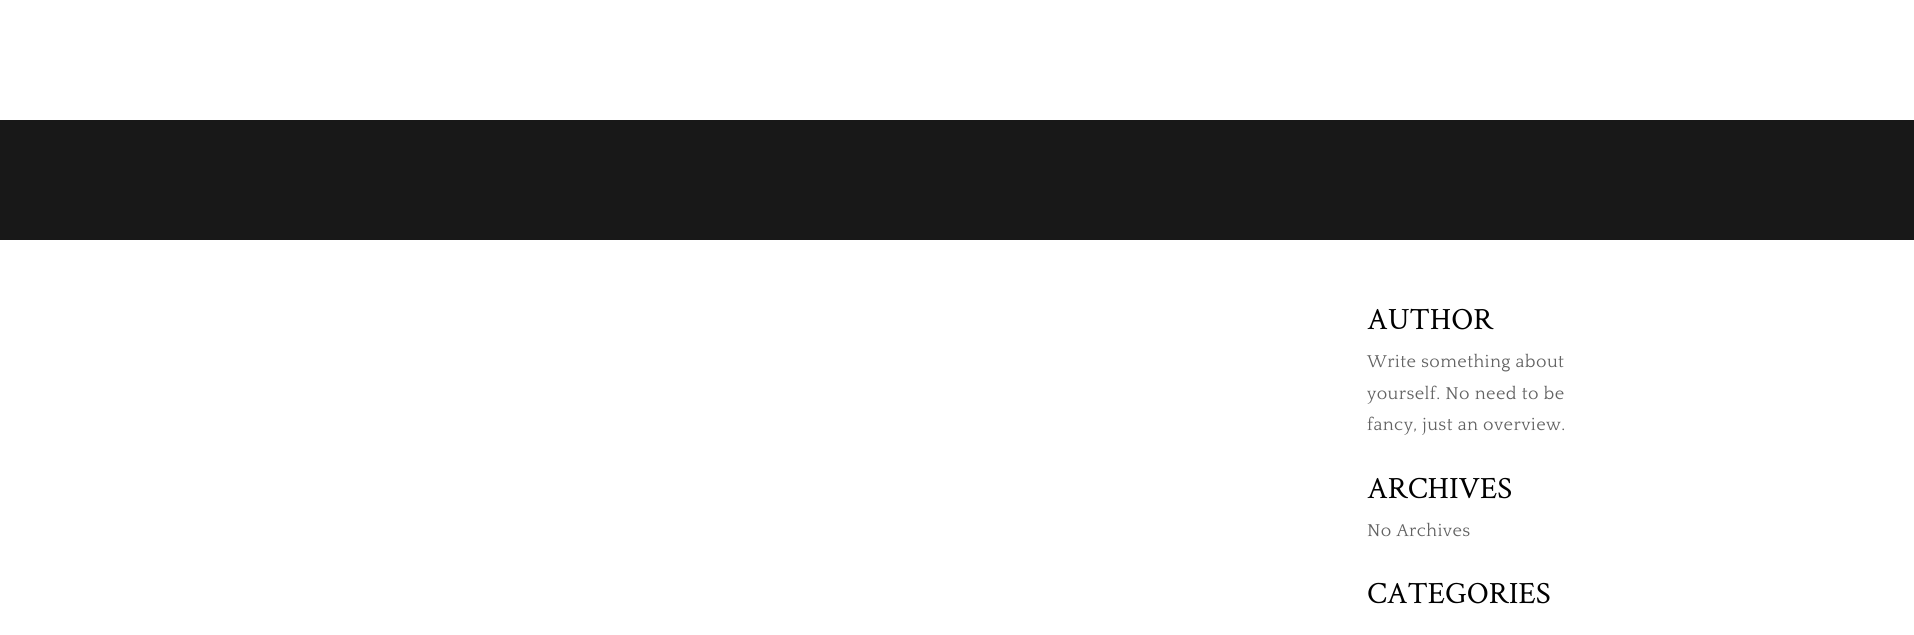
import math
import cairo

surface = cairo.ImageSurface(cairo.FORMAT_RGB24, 1914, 635)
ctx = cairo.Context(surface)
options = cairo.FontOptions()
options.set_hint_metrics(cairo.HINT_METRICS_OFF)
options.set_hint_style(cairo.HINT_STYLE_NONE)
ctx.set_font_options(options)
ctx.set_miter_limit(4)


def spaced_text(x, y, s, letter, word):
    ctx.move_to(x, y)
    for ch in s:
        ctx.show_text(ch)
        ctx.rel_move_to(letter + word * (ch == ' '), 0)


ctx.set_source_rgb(1, 1, 1)
ctx.paint()
ctx.set_source_rgb(0.094, 0.094, 0.094)
ctx.rectangle(0, 120, 1914, 120)
ctx.fill()
ctx.select_font_face("Crimson Text")
ctx.set_font_size(31)
ctx.set_source_rgb(0, 0, 0)
ctx.move_to(1367, 329)
ctx.show_text("AUTHOR")
ctx.select_font_face("Quattrocento")
ctx.set_font_size(18)
ctx.set_source_rgb(0.384, 0.384, 0.384)
spaced_text(1367, 367, "Write something about", 0.4, 0)
spaced_text(1367, 399, "yourself. No need to be", 0.4, 0)
spaced_text(1367, 430, "fancy, just an overview.", 0.4, 0)
ctx.select_font_face("Crimson Text")
ctx.set_font_size(31)
ctx.set_source_rgb(0, 0, 0)
ctx.move_to(1367, 498)
ctx.show_text("ARCHIVES")
ctx.select_font_face("Quattrocento")
ctx.set_font_size(18)
ctx.set_source_rgb(0.384, 0.384, 0.384)
spaced_text(1367, 536, "No Archives", 0.4, 0)
ctx.select_font_face("Crimson Text")
ctx.set_font_size(31)
ctx.set_source_rgb(0, 0, 0)
ctx.move_to(1367, 603)
ctx.show_text("CATEGORIES")
surface.write_to_png("page.png")
